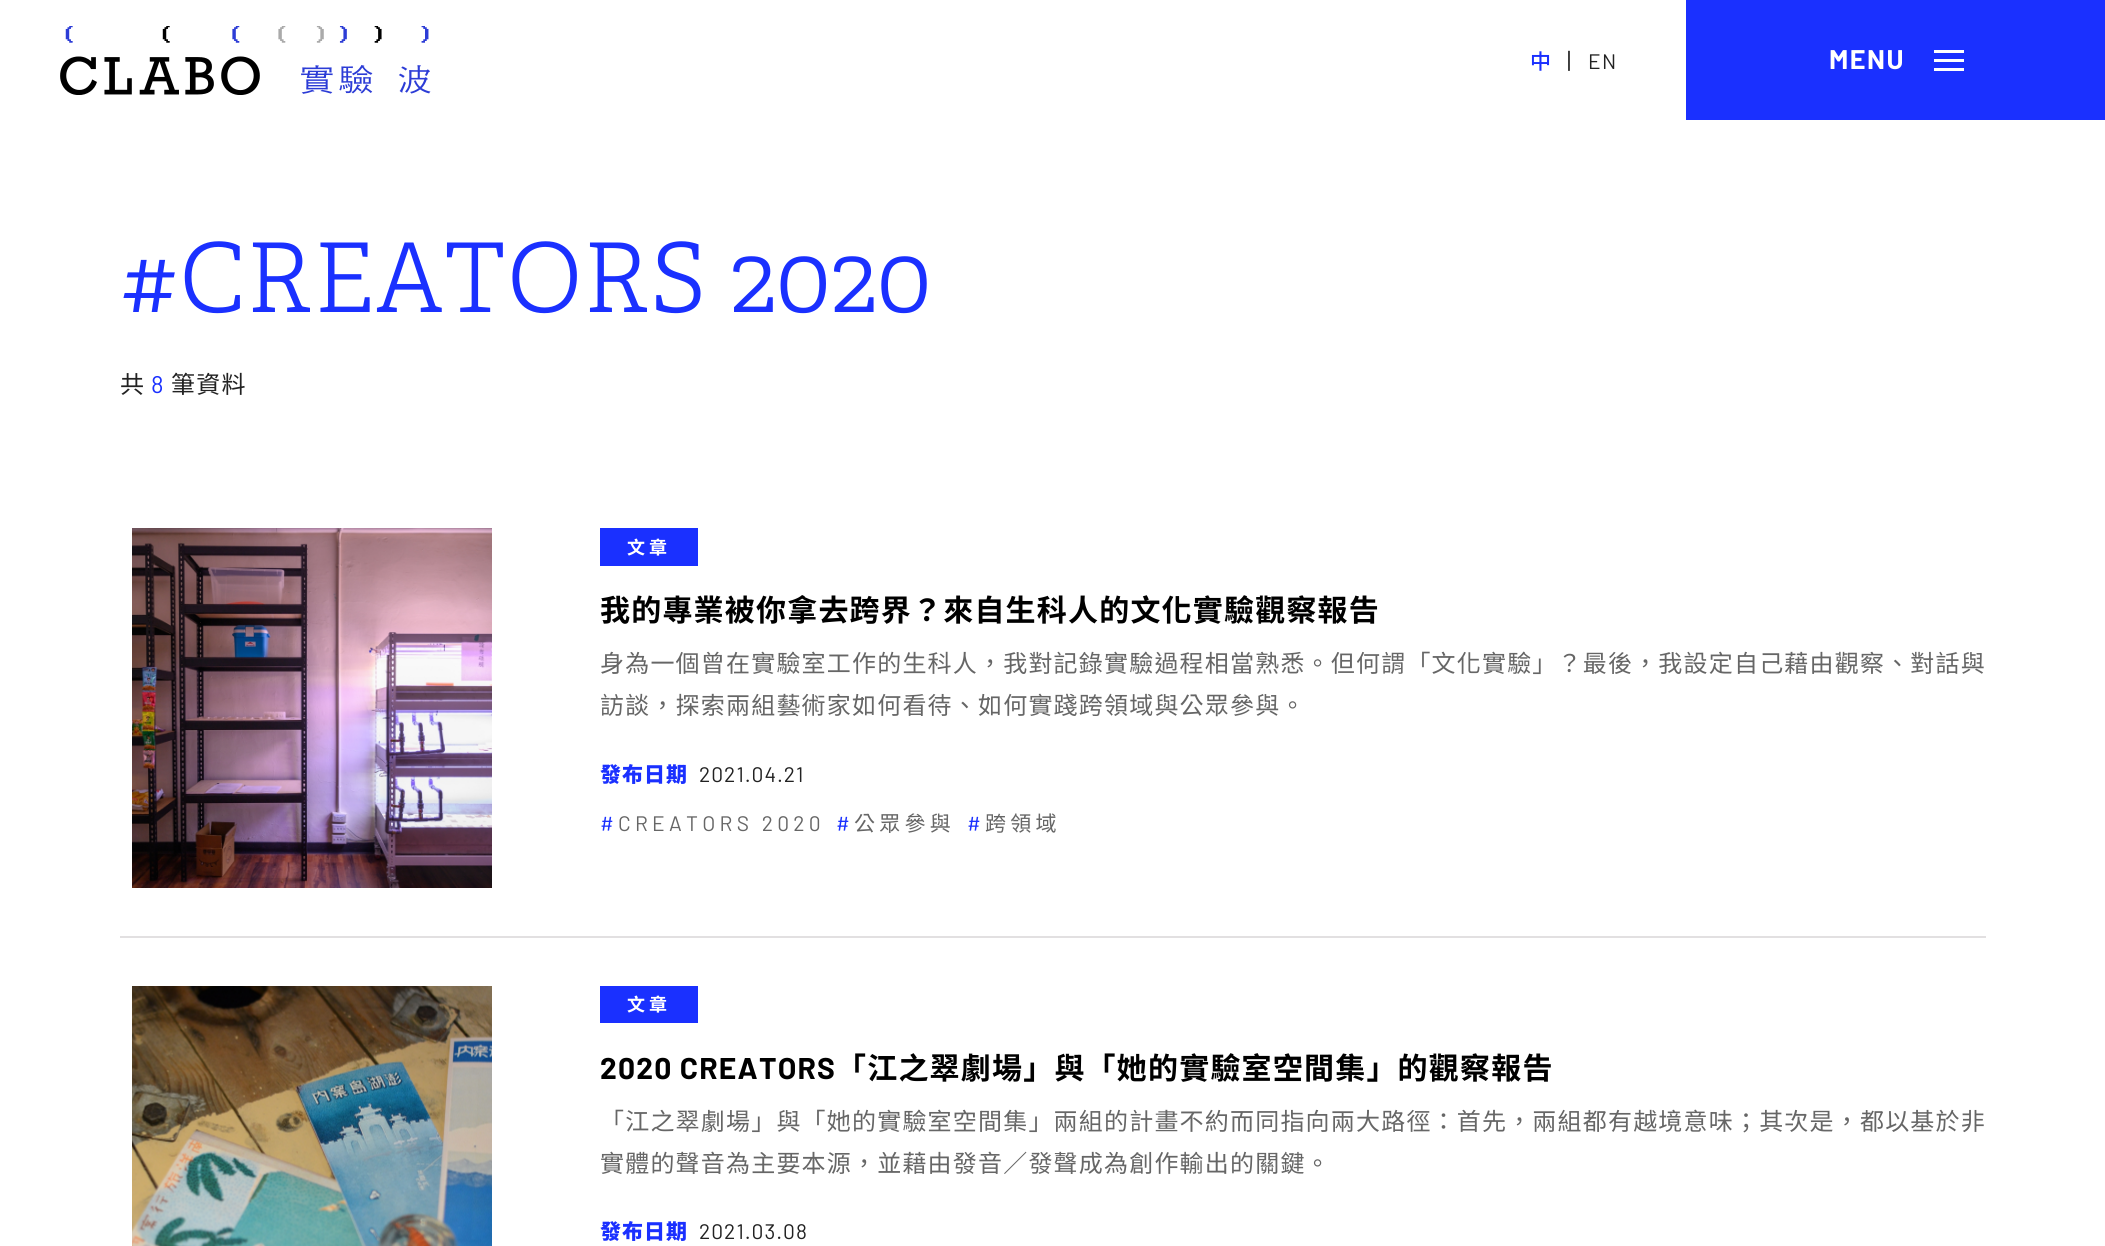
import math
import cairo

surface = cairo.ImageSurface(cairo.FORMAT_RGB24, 2105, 1246)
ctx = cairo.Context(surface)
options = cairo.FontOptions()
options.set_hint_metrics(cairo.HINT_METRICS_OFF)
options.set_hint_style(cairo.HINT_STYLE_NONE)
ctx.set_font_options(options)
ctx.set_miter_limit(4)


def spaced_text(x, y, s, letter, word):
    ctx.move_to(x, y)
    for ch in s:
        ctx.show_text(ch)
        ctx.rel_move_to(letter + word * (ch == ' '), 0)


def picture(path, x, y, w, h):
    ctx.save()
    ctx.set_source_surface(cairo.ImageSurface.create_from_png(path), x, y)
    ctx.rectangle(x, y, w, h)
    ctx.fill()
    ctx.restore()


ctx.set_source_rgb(1, 1, 1)
ctx.paint()
picture("img1.png", 60, 26, 371, 69)
ctx.select_font_face("Noto Sans TC Medium")
ctx.set_font_size(21)
ctx.set_source_rgb(0.102, 0.188, 1)
spaced_text(1530, 69, "中", 1.2, 0)
ctx.select_font_face("Barlow")
ctx.set_font_size(24)
ctx.set_source_rgb(0.133, 0.133, 0.133)
spaced_text(1567, 69, "|", 1.2, 0)
ctx.set_font_size(21)
spaced_text(1588, 69, "EN", 1.2, 0)
ctx.set_source_rgb(0.102, 0.188, 1)
ctx.rectangle(1686, 0, 419, 120)
ctx.fill()
ctx.select_font_face("Barlow", cairo.FONT_SLANT_NORMAL, cairo.FONT_WEIGHT_BOLD)
ctx.set_font_size(27)
ctx.set_source_rgb(1, 1, 1)
spaced_text(1829, 69, "MENU", 1.5, 0)
ctx.rectangle(1934, 59, 30, 3)
ctx.fill()
ctx.rectangle(1934, 50, 30, 3)
ctx.fill()
ctx.rectangle(1934, 68, 30, 3)
ctx.fill()
ctx.select_font_face("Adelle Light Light")
ctx.set_font_size(96)
ctx.set_source_rgb(0.102, 0.188, 1)
spaced_text(120, 312, "#CREATORS 2020", 1.2, 0)
ctx.select_font_face("Noto Sans TC")
ctx.set_font_size(24)
ctx.set_source_rgb(0.133, 0.133, 0.133)
spaced_text(120, 393, "共", 1.2, 0)
ctx.select_font_face("Barlow")
ctx.set_source_rgb(0.102, 0.188, 1)
spaced_text(151, 393, "8", 1.2, 0)
ctx.select_font_face("Noto Sans TC")
ctx.set_source_rgb(0.133, 0.133, 0.133)
spaced_text(171, 393, "筆資料", 1.2, 0)
ctx.set_source_rgb(0.886, 0.878, 0.882)
ctx.rectangle(120, 936, 1866, 2)
ctx.fill()
picture("img2.png", 132, 528, 360, 360)
ctx.set_source_rgb(0.102, 0.188, 1)
ctx.rectangle(600, 528, 98, 38)
ctx.fill()
ctx.select_font_face("Noto Sans TC", cairo.FONT_SLANT_NORMAL, cairo.FONT_WEIGHT_BOLD)
ctx.set_font_size(18)
ctx.set_source_rgb(1, 1, 1)
spaced_text(627, 554, "文章", 4, 0)
ctx.set_font_size(30)
ctx.set_source_rgb(0, 0, 0)
spaced_text(600, 621, "我的專業被你拿去跨界？來自生科人的文化實驗觀察報告", 1.2, 0)
ctx.select_font_face("Noto Sans TC")
ctx.set_font_size(24)
ctx.set_source_rgb(0.4, 0.4, 0.4)
spaced_text(600, 672, "身為一個曾在實驗室工作的生科人，我對記錄實驗過程相當熟悉。但何謂「文化實驗」？最後，我設定自己藉由觀察、對話與", 1.2, 0)
spaced_text(600, 714, "訪談，探索兩組藝術家如何看待、如何實踐跨領域與公眾參與。", 1.2, 0)
ctx.select_font_face("Noto Sans TC Black")
ctx.set_font_size(21)
ctx.set_source_rgb(0.102, 0.188, 1)
spaced_text(600, 782, "發布日期", 1, 0)
ctx.select_font_face("Barlow")
ctx.set_source_rgb(0.133, 0.133, 0.133)
spaced_text(699, 782, "2021.04.21", 1, 0)
ctx.set_source_rgb(0.102, 0.188, 1)
spaced_text(600, 831, "#", 4.25, 0)
ctx.set_source_rgb(0.4, 0.4, 0.4)
spaced_text(618, 831, "CREATORS 2020", 4.25, 0)
ctx.set_source_rgb(0.102, 0.188, 1)
spaced_text(836, 831, "#", 4.25, 0)
ctx.select_font_face("Noto Sans TC")
ctx.set_source_rgb(0.4, 0.4, 0.4)
spaced_text(854, 831, "公眾參與", 4.25, 0)
ctx.select_font_face("Barlow")
ctx.set_source_rgb(0.102, 0.188, 1)
spaced_text(967, 831, "#", 4.25, 0)
ctx.select_font_face("Noto Sans TC")
ctx.set_source_rgb(0.4, 0.4, 0.4)
spaced_text(985, 831, "跨領域", 4.25, 0)
picture("img3.png", 132, 986, 360, 260)
ctx.set_source_rgb(0.102, 0.188, 1)
ctx.rectangle(600, 986, 98, 37)
ctx.fill()
ctx.select_font_face("Noto Sans TC", cairo.FONT_SLANT_NORMAL, cairo.FONT_WEIGHT_BOLD)
ctx.set_font_size(18)
ctx.set_source_rgb(1, 1, 1)
spaced_text(627, 1011, "文章", 4, 0)
ctx.select_font_face("Barlow", cairo.FONT_SLANT_NORMAL, cairo.FONT_WEIGHT_BOLD)
ctx.set_font_size(30)
ctx.set_source_rgb(0, 0, 0)
spaced_text(600, 1079, "2020 CREATORS", 1.2, 0)
ctx.select_font_face("Noto Sans TC", cairo.FONT_SLANT_NORMAL, cairo.FONT_WEIGHT_BOLD)
spaced_text(836, 1079, "「江之翠劇場」與「她的實驗室空間集」的觀察報告", 1.2, 0)
ctx.select_font_face("Noto Sans TC")
ctx.set_font_size(24)
ctx.set_source_rgb(0.4, 0.4, 0.4)
spaced_text(600, 1130, "「江之翠劇場」與「她的實驗室空間集」兩組的計畫不約而同指向兩大路徑：首先，兩組都有越境意味；其次是，都以基於非", 1.2, 0)
spaced_text(600, 1172, "實體的聲音為主要本源，並藉由發音／發聲成為創作輸出的關鍵。", 1.2, 0)
ctx.select_font_face("Noto Sans TC Black")
ctx.set_font_size(21)
ctx.set_source_rgb(0.102, 0.188, 1)
spaced_text(600, 1239, "發布日期", 1, 0)
ctx.select_font_face("Barlow")
ctx.set_source_rgb(0.133, 0.133, 0.133)
spaced_text(699, 1239, "2021.03.08", 1, 0)
surface.write_to_png("page.png")
